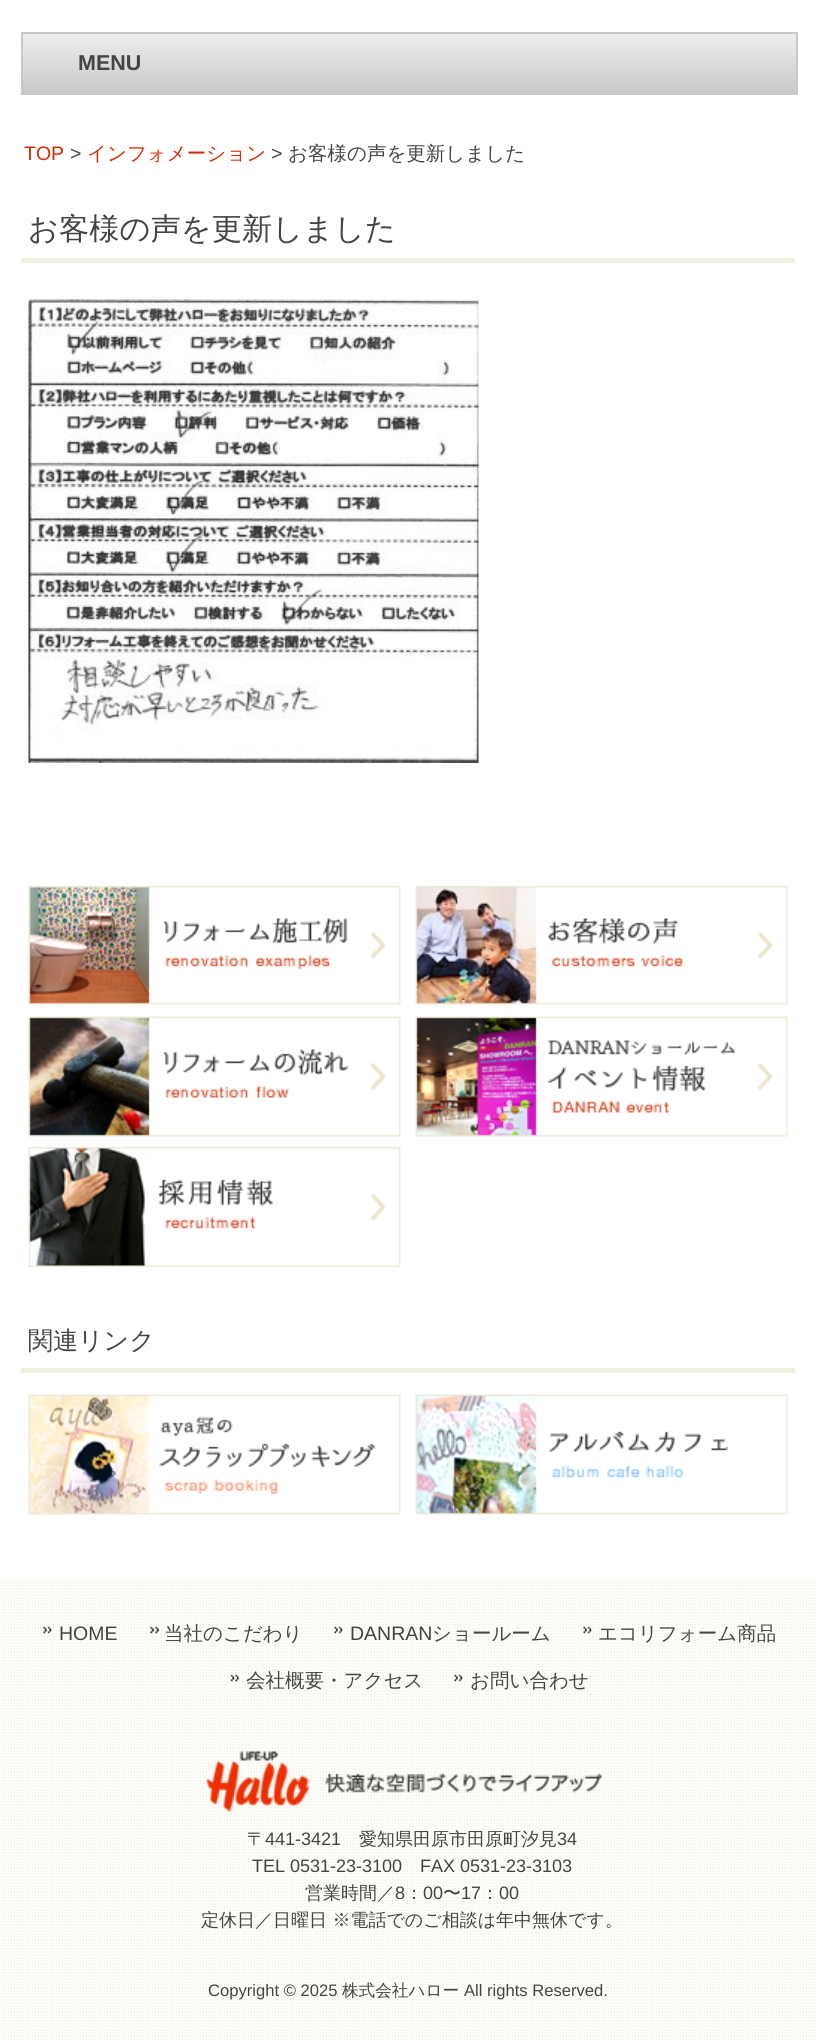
import math
import cairo

surface = cairo.ImageSurface(cairo.FORMAT_RGB24, 816, 2040)
ctx = cairo.Context(surface)
options = cairo.FontOptions()
options.set_hint_metrics(cairo.HINT_METRICS_OFF)
options.set_hint_style(cairo.HINT_STYLE_NONE)
ctx.set_font_options(options)
ctx.set_miter_limit(4)


def picture(path, x, y, w, h):
    ctx.save()
    ctx.set_source_surface(cairo.ImageSurface.create_from_png(path), x, y)
    ctx.rectangle(x, y, w, h)
    ctx.fill()
    ctx.restore()


ctx.set_source_rgb(1, 1, 1)
ctx.paint()
gradient = cairo.LinearGradient(410, 33, 410, 93)
gradient.add_color_stop_rgba(0, 0.929, 0.937, 0.937, 1)
gradient.add_color_stop_rgba(1, 0.784, 0.788, 0.788, 1)
ctx.set_source(gradient)
ctx.rectangle(23, 34, 773, 59)
ctx.fill()
ctx.rectangle(22, 33, 775, 61)
ctx.set_source_rgb(0.78, 0.788, 0.788)
ctx.stroke()
ctx.select_font_face("Liberation Sans", cairo.FONT_SLANT_NORMAL, cairo.FONT_WEIGHT_BOLD)
ctx.set_font_size(21.5)
ctx.set_source_rgb(0.267, 0.267, 0.267)
ctx.move_to(78, 70)
ctx.show_text("MENU")
ctx.select_font_face("Liberation Sans")
ctx.set_font_size(19.5)
ctx.set_source_rgb(0.831, 0.169, 0)
ctx.move_to(24, 160)
ctx.show_text("TOP")
ctx.set_source_rgb(0.267, 0.267, 0.267)
ctx.move_to(70, 160)
ctx.show_text(">")
ctx.select_font_face("WenQuanYi Zen Hei Medium")
ctx.set_source_rgb(0.831, 0.169, 0)
ctx.move_to(87, 160)
ctx.show_text("インフォメーション")
ctx.select_font_face("Liberation Sans")
ctx.set_source_rgb(0.267, 0.267, 0.267)
ctx.move_to(271, 160)
ctx.show_text(">")
ctx.select_font_face("WenQuanYi Zen Hei Medium")
ctx.move_to(288, 160)
ctx.show_text("お客様の声を更新しました")
ctx.set_source_rgb(0.941, 0.941, 0.882)
ctx.rectangle(21, 258, 774, 5)
ctx.fill()
ctx.set_font_size(30.25)
ctx.set_source_rgb(0.267, 0.267, 0.267)
ctx.move_to(28, 239)
ctx.show_text("お客様の声を更新しました")
picture("img1.png", 28, 299, 451, 464)
picture("img2.png", 28, 886, 373, 119)
picture("img3.png", 415, 886, 373, 119)
picture("img4.png", 28, 1016, 373, 121)
picture("img5.png", 415, 1016, 373, 121)
picture("img6.png", 28, 1147, 373, 120)
ctx.set_source_rgb(0.941, 0.941, 0.882)
ctx.rectangle(21, 1368, 774, 5)
ctx.fill()
ctx.set_font_size(25)
ctx.set_source_rgb(0.267, 0.267, 0.267)
ctx.move_to(28, 1349)
ctx.show_text("関連リンク")
picture("img7.png", 28, 1394, 373, 121)
picture("img8.png", 415, 1394, 373, 121)
picture("img9.png", 0, 1577, 816, 463)
picture("img10.png", 43, 1626, 9, 8)
ctx.select_font_face("Liberation Sans")
ctx.set_font_size(19.5)
ctx.move_to(59, 1640)
ctx.show_text("HOME")
picture("img11.png", 150, 1626, 10, 8)
ctx.select_font_face("WenQuanYi Zen Hei Medium")
ctx.move_to(164, 1640)
ctx.show_text("当社のこだわり")
picture("img12.png", 334, 1626, 9, 8)
ctx.select_font_face("Liberation Sans")
ctx.move_to(350, 1640)
ctx.show_text("DANRAN")
ctx.select_font_face("WenQuanYi Zen Hei Medium")
ctx.move_to(432, 1640)
ctx.show_text("ショールーム")
picture("img13.png", 583, 1626, 9, 8)
ctx.move_to(598, 1640)
ctx.show_text("エコリフォーム商品")
picture("img14.png", 230, 1674, 9, 8)
ctx.move_to(246, 1687)
ctx.show_text("会社概要・アクセス")
picture("img15.png", 454, 1674, 9, 8)
ctx.move_to(470, 1687)
ctx.show_text("お問い合わせ")
picture("img16.png", 206, 1751, 396, 61)
ctx.set_font_size(18)
ctx.move_to(247, 1845)
ctx.show_text("〒")
ctx.select_font_face("Liberation Sans")
ctx.move_to(265, 1845)
ctx.show_text("441-3421")
ctx.select_font_face("WenQuanYi Zen Hei Medium")
ctx.move_to(359, 1845)
ctx.show_text("愛知県田原市田原町汐見")
ctx.select_font_face("Liberation Sans")
ctx.move_to(557, 1845)
ctx.show_text("34")
ctx.move_to(252, 1872)
ctx.show_text("TEL 0531-23-3100")
ctx.move_to(420, 1872)
ctx.show_text("FAX 0531-23-3103")
ctx.select_font_face("WenQuanYi Zen Hei Medium")
ctx.move_to(305, 1899)
ctx.show_text("営業時間／")
ctx.select_font_face("Liberation Sans")
ctx.move_to(395, 1899)
ctx.show_text("8")
ctx.select_font_face("WenQuanYi Zen Hei Medium")
ctx.move_to(405, 1899)
ctx.show_text("：")
ctx.select_font_face("Liberation Sans")
ctx.move_to(423, 1899)
ctx.show_text("00")
ctx.select_font_face("WenQuanYi Zen Hei Medium")
ctx.move_to(443, 1899)
ctx.show_text("〜")
ctx.select_font_face("Liberation Sans")
ctx.move_to(461, 1899)
ctx.show_text("17")
ctx.select_font_face("WenQuanYi Zen Hei Medium")
ctx.move_to(481, 1899)
ctx.show_text("：")
ctx.select_font_face("Liberation Sans")
ctx.move_to(499, 1899)
ctx.show_text("00")
ctx.select_font_face("WenQuanYi Zen Hei Medium")
ctx.move_to(201, 1926)
ctx.show_text("定休日／日曜日 ※電話でのご相談は年中無休です。")
ctx.select_font_face("Liberation Sans")
ctx.set_font_size(16.6)
ctx.move_to(208, 1996)
ctx.show_text("Copyright © 2025")
ctx.select_font_face("WenQuanYi Zen Hei Medium")
ctx.move_to(342, 1996)
ctx.show_text("株式会社ハロー")
ctx.select_font_face("Liberation Sans")
ctx.move_to(464, 1996)
ctx.show_text("All rights Reserved.")
surface.write_to_png("page.png")
